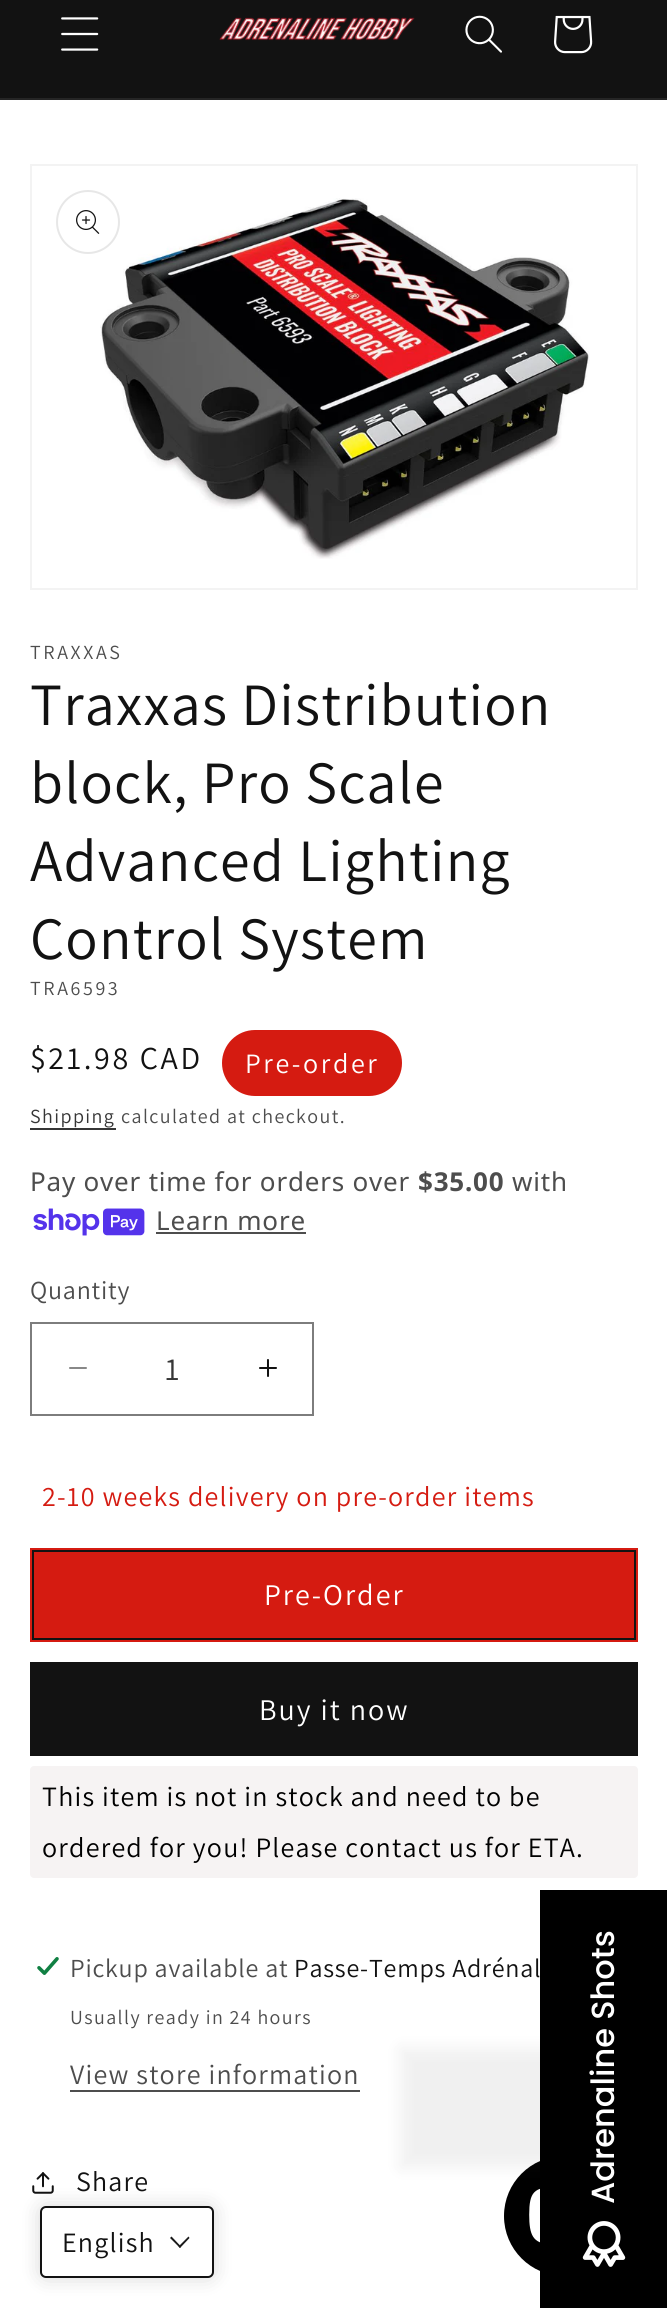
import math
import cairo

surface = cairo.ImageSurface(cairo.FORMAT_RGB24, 667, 2317)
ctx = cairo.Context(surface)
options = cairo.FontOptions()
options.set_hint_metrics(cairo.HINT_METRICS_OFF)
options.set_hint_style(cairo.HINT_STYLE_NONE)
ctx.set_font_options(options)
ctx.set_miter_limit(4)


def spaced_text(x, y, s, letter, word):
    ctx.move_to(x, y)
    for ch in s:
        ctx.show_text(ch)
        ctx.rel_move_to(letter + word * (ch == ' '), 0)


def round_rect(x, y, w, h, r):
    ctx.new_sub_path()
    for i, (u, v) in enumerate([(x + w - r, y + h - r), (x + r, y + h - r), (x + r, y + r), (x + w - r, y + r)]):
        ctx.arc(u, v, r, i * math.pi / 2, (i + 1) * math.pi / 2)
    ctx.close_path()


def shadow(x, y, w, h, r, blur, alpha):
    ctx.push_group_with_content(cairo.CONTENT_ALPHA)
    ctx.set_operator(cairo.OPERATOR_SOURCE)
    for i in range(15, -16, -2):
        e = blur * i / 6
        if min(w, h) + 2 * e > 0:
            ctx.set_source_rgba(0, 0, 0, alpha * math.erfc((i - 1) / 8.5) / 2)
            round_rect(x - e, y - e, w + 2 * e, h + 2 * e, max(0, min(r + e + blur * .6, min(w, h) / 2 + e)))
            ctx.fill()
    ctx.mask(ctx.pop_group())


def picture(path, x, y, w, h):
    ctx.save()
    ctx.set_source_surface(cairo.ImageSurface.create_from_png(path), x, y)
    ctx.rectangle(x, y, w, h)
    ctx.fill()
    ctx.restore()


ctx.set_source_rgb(1, 1, 1)
ctx.paint()
ctx.set_source_rgb(0.071, 0.071, 0.071)
ctx.rectangle(0, 0, 667, 98)
ctx.fill()
ctx.set_source_rgb(0.145, 0.145, 0.145)
ctx.rectangle(0, 98, 667, 2)
ctx.fill()
picture("img1.png", 61, 17, 38, 34)
picture("img2.png", 219, 17, 196, 24)
picture("img3.png", 465, 15, 37, 38)
picture("img4.png", 554, 15, 39, 39)
ctx.rectangle(31, 165, 606, 424)
ctx.set_source_rgb(0.953, 0.953, 0.953)
ctx.stroke()
picture("img6.png", 100, 198, 490, 361)
ctx.arc(88, 222, 31, 0, 2 * math.pi)
ctx.set_source_rgb(0.906, 0.906, 0.906)
ctx.stroke()
picture("img5.png", 76, 210, 24, 24)
ctx.select_font_face("Assistant")
ctx.set_font_size(20)
ctx.set_source_rgb(0.302, 0.302, 0.302)
spaced_text(30, 659, "TRAXXAS", 2.6, 0)
ctx.set_font_size(60)
ctx.set_source_rgb(0.071, 0.071, 0.071)
spaced_text(30, 725, "Traxxas Distribution", 1.2, 0)
spaced_text(30, 803, "block, Pro Scale", 1.2, 0)
spaced_text(30, 881, "Advanced Lighting", 1.2, 0)
spaced_text(30, 959, "Control System", 1.2, 0)
ctx.set_font_size(20)
ctx.set_source_rgb(0.302, 0.302, 0.302)
spaced_text(30, 995, "TRA6593", 2.6, 0)
ctx.set_font_size(32)
ctx.set_source_rgb(0.071, 0.071, 0.071)
spaced_text(30, 1069, "$21.98 CAD", 2.6, 0)
ctx.set_source_rgb(0.835, 0.106, 0.067)
round_rect(223, 1031, 178, 64, 32)
ctx.fill_preserve()
ctx.stroke()
ctx.set_font_size(28)
ctx.set_source_rgb(1, 1, 1)
spaced_text(245, 1073, "Pre-order", 2.6, 0)
ctx.set_font_size(20)
ctx.set_source_rgb(0.212, 0.212, 0.212)
spaced_text(30, 1123, "Shipping", 1.4, 0)
ctx.rectangle(30, 1128, 86, 2)
ctx.fill()
ctx.set_source_rgb(0.302, 0.302, 0.302)
spaced_text(121, 1123, "calculated at checkout.", 1.4, 0)
ctx.select_font_face("Noto Sans")
ctx.set_font_size(26)
spaced_text(30, 1191, "Pay over time for orders over", 0.8, 0)
ctx.select_font_face("Noto Sans", cairo.FONT_SLANT_NORMAL, cairo.FONT_WEIGHT_BOLD)
spaced_text(418, 1191, "$35.00", 0.8, 0)
ctx.select_font_face("Noto Sans")
spaced_text(512, 1191, "with", 0.8, 0)
picture("img7.png", 33, 1208, 112, 28)
spaced_text(156, 1230, "Learn more", 0.8, 0)
ctx.rectangle(156, 1232, 150, 2)
ctx.fill()
ctx.select_font_face("Assistant")
spaced_text(30, 1299, "Quantity", 0.8, 0)
picture("img8.png", 69, 1367, 18, 2)
picture("img9.png", 259, 1359, 18, 18)
ctx.rectangle(31, 1323, 282, 92)
ctx.set_source_rgb(0.49, 0.49, 0.49)
ctx.stroke()
ctx.set_font_size(32)
ctx.set_source_rgb(0.212, 0.212, 0.212)
ctx.move_to(165, 1380)
ctx.show_text("1")
ctx.set_font_size(28)
ctx.set_source_rgb(0.835, 0.106, 0.067)
spaced_text(42, 1506, "2-10 weeks delivery on pre-order items", 1.2, 0)
ctx.rectangle(30, 1548, 608, 94)
ctx.fill()
ctx.rectangle(33, 1551, 602, 88)
ctx.set_source_rgb(0.071, 0.071, 0.071)
ctx.stroke()
ctx.set_font_size(30)
ctx.set_source_rgb(1, 1, 1)
spaced_text(264, 1605, "Pre-Order", 2, 0)
ctx.set_source_rgb(0.071, 0.071, 0.071)
ctx.rectangle(30, 1662, 608, 94)
ctx.fill()
ctx.set_source_rgb(1, 1, 1)
spaced_text(259, 1720, "Buy it now", 2, 0)
ctx.set_source_rgb(0.961, 0.953, 0.953)
round_rect(30, 1766, 608, 112, 4)
ctx.fill()
ctx.set_font_size(28)
ctx.set_source_rgb(0, 0, 0)
spaced_text(42, 1806, "This item is not in stock and need to be", 1.2, 0)
spaced_text(42, 1857, "ordered for you! Please contact us for ETA.", 1.2, 0)
picture("img10.png", 37, 1957, 22, 18)
ctx.set_font_size(26)
ctx.set_source_rgb(0.302, 0.302, 0.302)
spaced_text(70, 1977, "Pickup available at", 0.8, 0)
ctx.set_source_rgb(0.071, 0.071, 0.071)
spaced_text(294, 1977, "Passe-Temps Adrénal", 0.8, 0)
ctx.set_font_size(20)
ctx.set_source_rgb(0.302, 0.302, 0.302)
spaced_text(70, 2024, "Usually ready in 24 hours", 1.4, 0)
ctx.set_font_size(28)
spaced_text(70, 2084, "View store information", 1.2, 0)
ctx.rectangle(70, 2090, 290, 2)
ctx.fill()
picture("img11.png", 32, 2172, 22, 22)
ctx.set_source_rgb(0.071, 0.071, 0.071)
spaced_text(76, 2191, "Share", 1.2, 0)
ctx.set_source_rgb(0, 0, 0)
ctx.new_path()
ctx.arc(564, 2216, 60, 0, 2 * math.pi)
ctx.fill()
picture("img13.png", 529, 2188, 11, 55)
ctx.set_source_rgb(0.267, 0.267, 0.267)
shadow(400, 2048, 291, 120, 0, 8, 0.08)
ctx.set_source_rgb(0, 0, 0)
ctx.rectangle(540, 1890, 127, 418)
ctx.fill()
ctx.select_font_face("Poppins Medium")
ctx.set_font_size(32)
ctx.set_source_rgb(1, 1, 1)
ctx.save()
ctx.translate(614, 2204)
ctx.rotate(-90 * math.pi / 180)
ctx.move_to(0, 0)
ctx.show_text("Adrenaline Shots")
ctx.restore()
picture("img12.png", 582, 2221, 44, 46)
ctx.set_source_rgb(0, 0, 0)
shadow(40, 2206, 174, 72, 6, 10, 0.15)
ctx.set_source_rgb(1, 1, 1)
round_rect(41, 2207, 172, 70, 5)
ctx.fill_preserve()
ctx.set_source_rgb(0.071, 0.071, 0.071)
ctx.stroke()
ctx.select_font_face("Assistant")
ctx.set_font_size(28)
spaced_text(62, 2252, "English", 1.2, 0)
ctx.set_source_rgb(0.102, 0.102, 0.102)
ctx.new_path()
ctx.move_to(188.5, 2236.5)
ctx.line_to(189.5, 2238)
ctx.line_to(180, 2248)
ctx.line_to(178.5, 2246.5)
ctx.close_path()
ctx.fill()
ctx.new_path()
ctx.move_to(171.5, 2236.5)
ctx.line_to(181, 2246.5)
ctx.line_to(180, 2248)
ctx.line_to(170, 2238)
ctx.close_path()
ctx.fill()
surface.write_to_png("page.png")
